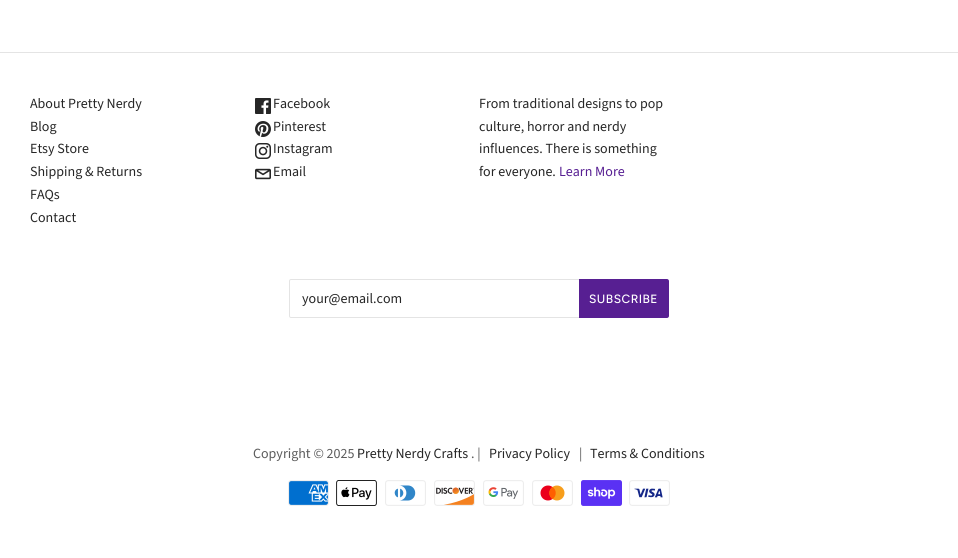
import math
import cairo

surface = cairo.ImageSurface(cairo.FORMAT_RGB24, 958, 558)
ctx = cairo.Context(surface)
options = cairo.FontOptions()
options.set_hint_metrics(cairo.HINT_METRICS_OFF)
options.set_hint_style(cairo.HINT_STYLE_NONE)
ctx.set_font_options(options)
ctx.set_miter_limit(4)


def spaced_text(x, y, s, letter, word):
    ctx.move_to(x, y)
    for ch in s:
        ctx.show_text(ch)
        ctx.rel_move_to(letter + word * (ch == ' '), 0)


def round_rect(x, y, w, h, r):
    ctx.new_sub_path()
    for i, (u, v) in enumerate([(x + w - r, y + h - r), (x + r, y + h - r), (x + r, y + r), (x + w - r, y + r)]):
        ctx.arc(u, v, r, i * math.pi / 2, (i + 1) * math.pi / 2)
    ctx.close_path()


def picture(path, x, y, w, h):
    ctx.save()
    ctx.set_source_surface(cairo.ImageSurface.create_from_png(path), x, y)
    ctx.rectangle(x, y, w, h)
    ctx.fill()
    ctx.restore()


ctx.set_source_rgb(1, 1, 1)
ctx.paint()
ctx.set_source_rgb(0.894, 0.894, 0.894)
ctx.rectangle(0, 52, 958, 1)
ctx.fill()
ctx.select_font_face("Source Sans Pro")
ctx.set_font_size(14)
ctx.set_source_rgb(0.149, 0.149, 0.149)
ctx.move_to(30, 108)
ctx.show_text("About Pretty Nerdy")
ctx.move_to(30, 131)
ctx.show_text("Blog")
ctx.move_to(30, 153)
ctx.show_text("Etsy Store")
ctx.move_to(30, 176)
ctx.show_text("Shipping & Returns")
ctx.move_to(30, 199)
ctx.show_text("FAQs")
ctx.move_to(30, 222)
ctx.show_text("Contact")
picture("img1.png", 255, 98, 16, 16)
ctx.move_to(273, 108)
ctx.show_text("Facebook")
picture("img2.png", 255, 121, 16, 16)
ctx.move_to(273, 131)
ctx.show_text("Pinterest")
picture("img3.png", 255, 143, 16, 16)
ctx.move_to(273, 153)
ctx.show_text("Instagram")
picture("img4.png", 255, 168, 16, 12)
ctx.move_to(273, 176)
ctx.show_text("Email")
ctx.move_to(479, 108)
ctx.show_text("From traditional designs to pop")
ctx.move_to(479, 131)
ctx.show_text("culture, horror and nerdy")
ctx.move_to(479, 153)
ctx.show_text("influences. There is something")
ctx.move_to(479, 176)
ctx.show_text("for everyone.")
ctx.set_source_rgb(0.341, 0.122, 0.573)
ctx.move_to(559, 176)
ctx.show_text("Learn More")
round_rect(289.5, 279.5, 339, 38, 1.5)
ctx.set_source_rgb(0.894, 0.894, 0.894)
ctx.set_line_width(1)
ctx.stroke()
ctx.set_source_rgb(0.149, 0.149, 0.149)
ctx.move_to(302, 303)
ctx.show_text("your@email.com")
ctx.set_source_rgb(0.341, 0.122, 0.573)
ctx.new_path()
ctx.move_to(579, 279)
ctx.line_to(667, 279)
ctx.curve_to(668, 279, 669, 280, 669, 281)
ctx.line_to(669, 316)
ctx.curve_to(669, 317, 668, 318, 667, 318)
ctx.line_to(579, 318)
ctx.close_path()
ctx.fill()
ctx.select_font_face("Figtree Medium")
ctx.set_font_size(12)
ctx.set_source_rgb(1, 1, 1)
spaced_text(589, 303, "SUBSCRIBE", 0.5, 0)
ctx.select_font_face("Source Sans Pro")
ctx.set_font_size(14)
ctx.set_source_rgb(0.361, 0.361, 0.361)
ctx.move_to(253, 458)
ctx.show_text("Copyright © 2025")
ctx.set_source_rgb(0.149, 0.149, 0.149)
ctx.move_to(357, 458)
ctx.show_text("Pretty Nerdy Crafts")
ctx.set_source_rgb(0.361, 0.361, 0.361)
ctx.move_to(471, 458)
ctx.show_text(". |")
ctx.set_source_rgb(0.149, 0.149, 0.149)
ctx.move_to(489, 458)
ctx.show_text("Privacy Policy")
ctx.set_source_rgb(0.361, 0.361, 0.361)
ctx.move_to(579, 458)
ctx.show_text("|")
ctx.set_source_rgb(0.149, 0.149, 0.149)
ctx.move_to(590, 458)
ctx.show_text("Terms & Conditions")
picture("img5.png", 288, 480, 41, 26)
picture("img6.png", 336, 480, 41, 26)
picture("img7.png", 385, 480, 41, 26)
picture("img8.png", 434, 480, 41, 26)
picture("img9.png", 483, 480, 41, 26)
picture("img10.png", 532, 480, 41, 26)
picture("img11.png", 581, 480, 41, 26)
picture("img12.png", 629, 480, 41, 26)
surface.write_to_png("page.png")
